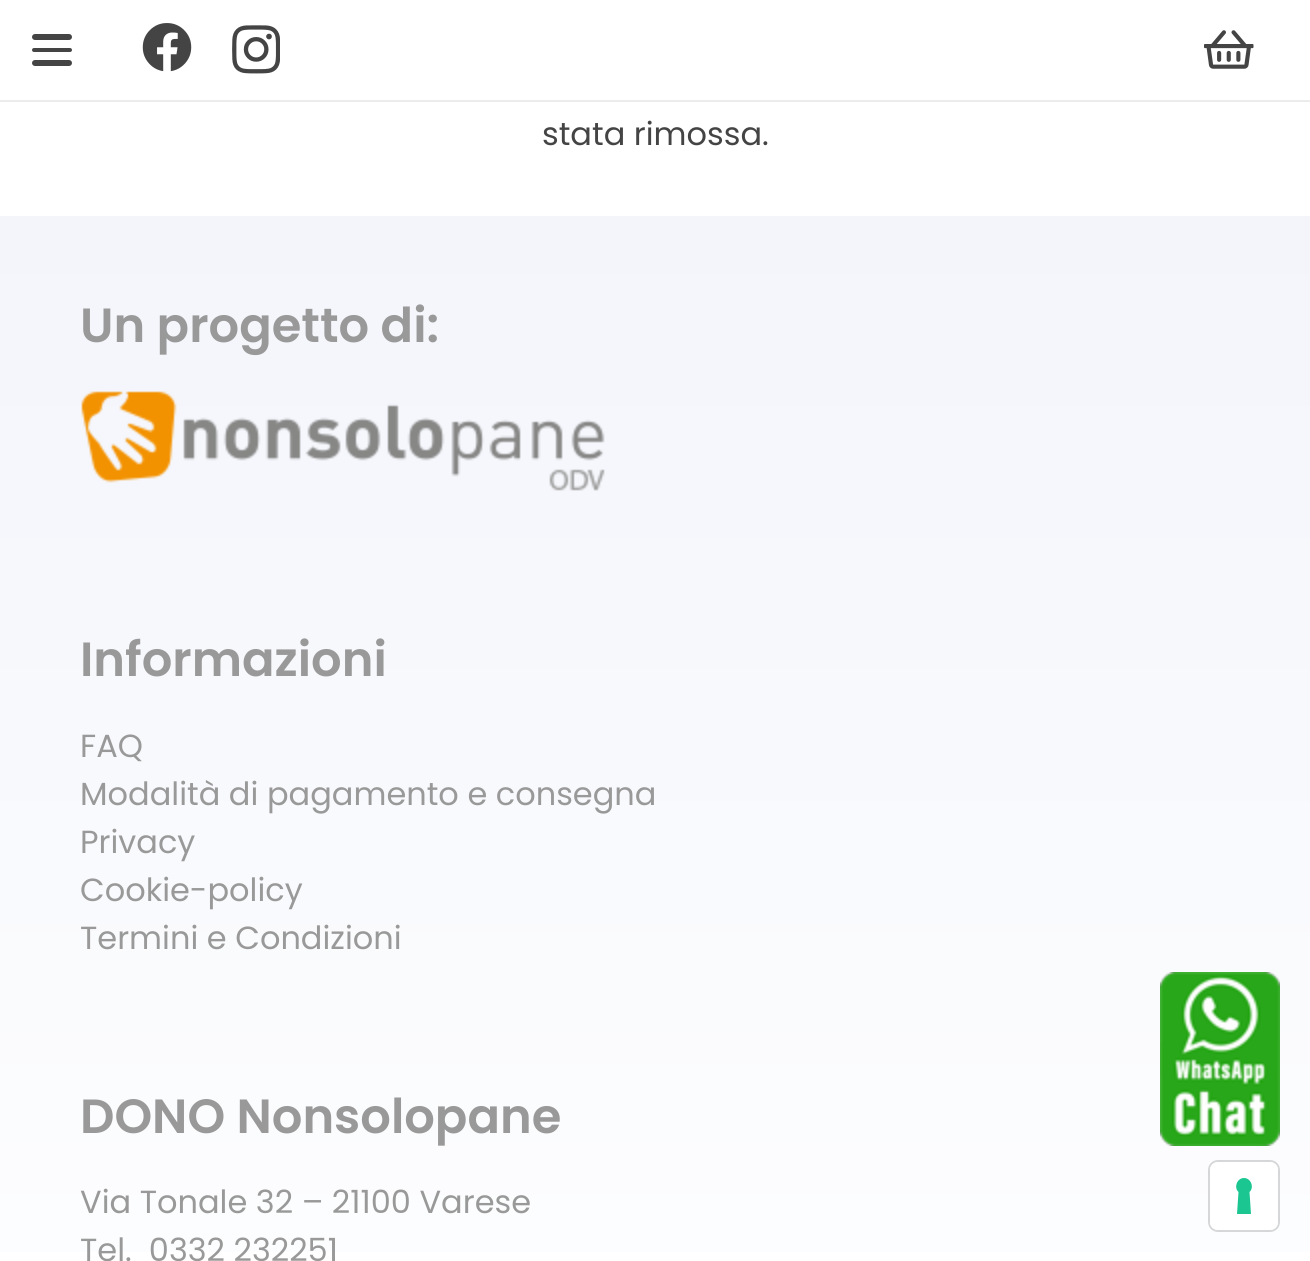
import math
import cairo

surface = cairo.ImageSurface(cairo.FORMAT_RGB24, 1310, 1261)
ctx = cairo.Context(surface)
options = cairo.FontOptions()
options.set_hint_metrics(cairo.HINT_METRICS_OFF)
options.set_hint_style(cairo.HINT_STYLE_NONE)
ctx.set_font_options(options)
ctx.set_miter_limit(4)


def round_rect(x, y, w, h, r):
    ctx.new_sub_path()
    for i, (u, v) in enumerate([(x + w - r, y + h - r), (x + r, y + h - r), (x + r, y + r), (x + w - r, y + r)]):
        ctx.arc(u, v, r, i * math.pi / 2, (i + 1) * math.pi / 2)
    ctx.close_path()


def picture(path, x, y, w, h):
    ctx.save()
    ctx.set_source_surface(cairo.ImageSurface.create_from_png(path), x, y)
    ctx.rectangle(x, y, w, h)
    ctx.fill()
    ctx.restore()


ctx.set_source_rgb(1, 1, 1)
ctx.paint()
ctx.set_source_rgb(0.922, 0.922, 0.922)
ctx.rectangle(0, 100, 1310, 2)
ctx.fill()
ctx.set_source_rgb(0.267, 0.267, 0.267)
round_rect(32, 48, 40, 4, 2)
ctx.fill()
round_rect(32, 34, 40, 6, 3)
ctx.fill()
round_rect(32, 60, 40, 6, 3)
ctx.fill()
picture("img1.png", 142, 23, 50, 49)
picture("img2.png", 232, 25, 48, 49)
picture("img3.png", 1204, 30, 50, 39)
ctx.select_font_face("Poppins")
ctx.set_font_size(32)
ctx.move_to(542, 145)
ctx.show_text("stata rimossa.")
gradient = cairo.LinearGradient(655, 216, 655, 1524)
gradient.add_color_stop_rgba(0, 0.953, 0.961, 0.984, 1)
gradient.add_color_stop_rgba(1, 1, 1, 1, 1)
ctx.set_source(gradient)
ctx.rectangle(0, 216, 1310, 1036)
ctx.fill()
ctx.select_font_face("Poppins SemiBold")
ctx.set_font_size(48)
ctx.set_source_rgb(0.6, 0.6, 0.6)
ctx.move_to(80, 342)
ctx.show_text("Un progetto di:")
picture("img4.png", 81, 391, 524, 100)
picture("img5.png", 1160, 972, 120, 174)
ctx.move_to(80, 676)
ctx.show_text("Informazioni")
ctx.select_font_face("Poppins")
ctx.set_font_size(32)
ctx.move_to(80, 757)
ctx.show_text("FAQ")
ctx.move_to(80, 805)
ctx.show_text("Modalità di pagamento e consegna")
ctx.move_to(80, 853)
ctx.show_text("Privacy")
ctx.move_to(80, 901)
ctx.show_text("Cookie-policy")
ctx.move_to(80, 949)
ctx.show_text("Termini e Condizioni")
ctx.select_font_face("Poppins SemiBold")
ctx.set_font_size(48)
ctx.move_to(80, 1133)
ctx.show_text("DONO Nonsolopane")
ctx.select_font_face("Poppins")
ctx.set_font_size(32)
ctx.move_to(80, 1213)
ctx.show_text("Via Tonale 32 – 21100 Varese")
ctx.move_to(80, 1261)
ctx.show_text("Tel.  0332 232251")
round_rect(1209, 1161, 70, 70, 9)
ctx.set_source_rgb(0.839, 0.843, 0.847)
ctx.stroke()
ctx.set_source_rgb(1, 1, 1)
round_rect(1210, 1162, 68, 68, 8)
ctx.fill()
ctx.set_source_rgb(0.11, 0.776, 0.569)
ctx.set_fill_rule(cairo.FILL_RULE_EVEN_ODD)
ctx.new_path()
ctx.move_to(1244, 1178)
ctx.curve_to(1251, 1178, 1254.5, 1187.5, 1249.5, 1192)
ctx.line_to(1251, 1214)
ctx.line_to(1237, 1214)
ctx.line_to(1238.5, 1192)
ctx.curve_to(1233.5, 1187.5, 1237, 1178, 1244, 1178)
ctx.close_path()
ctx.fill()
surface.write_to_png("page.png")
